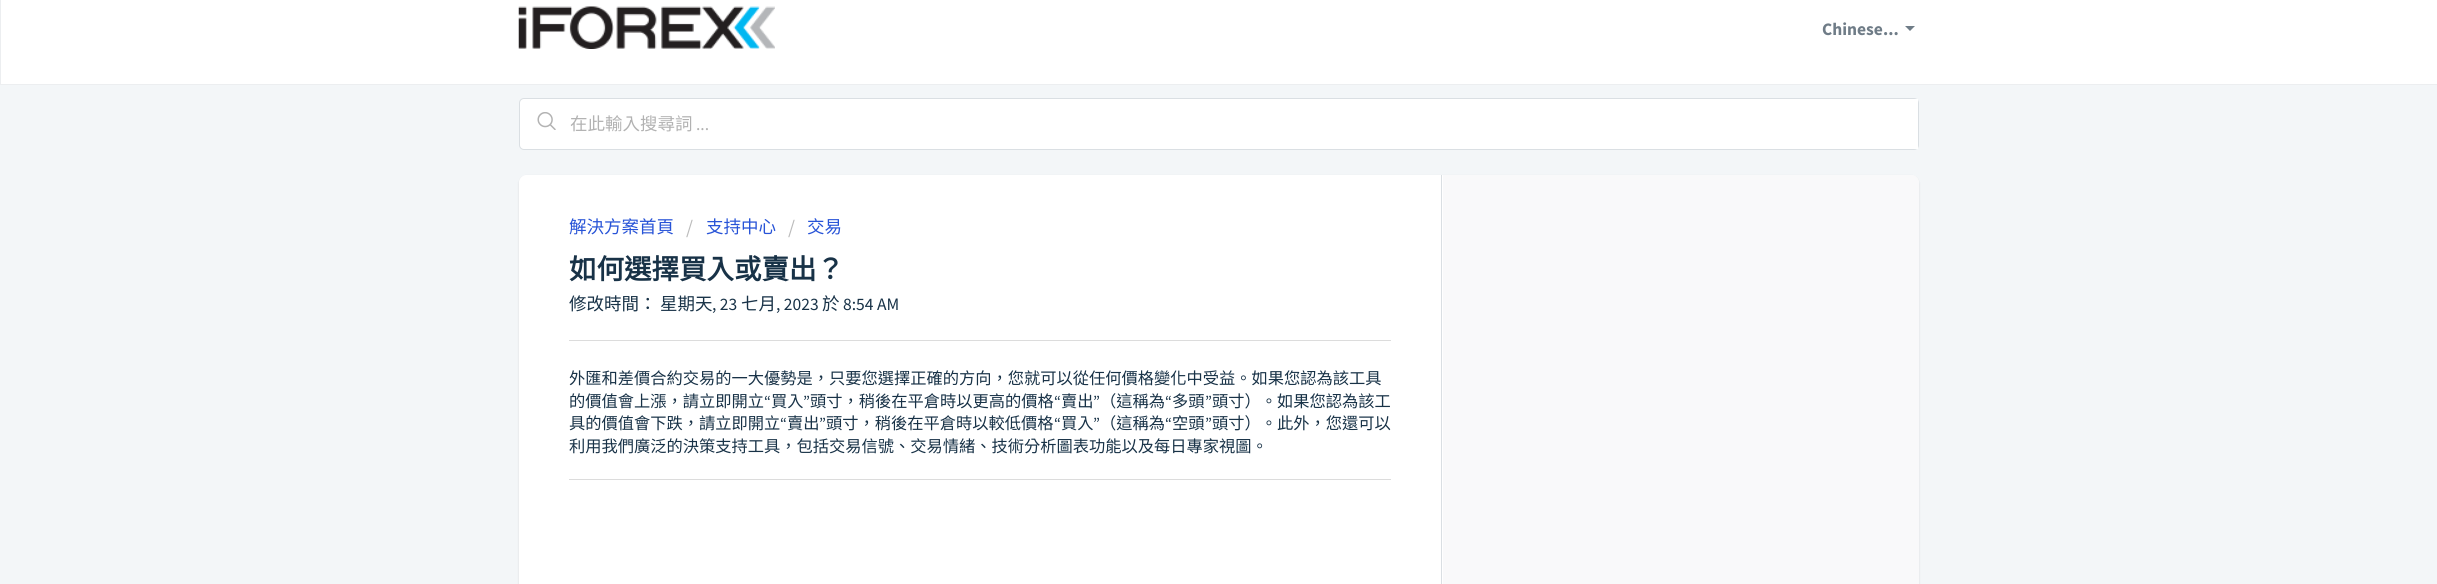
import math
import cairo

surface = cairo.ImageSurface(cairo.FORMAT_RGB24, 2437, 584)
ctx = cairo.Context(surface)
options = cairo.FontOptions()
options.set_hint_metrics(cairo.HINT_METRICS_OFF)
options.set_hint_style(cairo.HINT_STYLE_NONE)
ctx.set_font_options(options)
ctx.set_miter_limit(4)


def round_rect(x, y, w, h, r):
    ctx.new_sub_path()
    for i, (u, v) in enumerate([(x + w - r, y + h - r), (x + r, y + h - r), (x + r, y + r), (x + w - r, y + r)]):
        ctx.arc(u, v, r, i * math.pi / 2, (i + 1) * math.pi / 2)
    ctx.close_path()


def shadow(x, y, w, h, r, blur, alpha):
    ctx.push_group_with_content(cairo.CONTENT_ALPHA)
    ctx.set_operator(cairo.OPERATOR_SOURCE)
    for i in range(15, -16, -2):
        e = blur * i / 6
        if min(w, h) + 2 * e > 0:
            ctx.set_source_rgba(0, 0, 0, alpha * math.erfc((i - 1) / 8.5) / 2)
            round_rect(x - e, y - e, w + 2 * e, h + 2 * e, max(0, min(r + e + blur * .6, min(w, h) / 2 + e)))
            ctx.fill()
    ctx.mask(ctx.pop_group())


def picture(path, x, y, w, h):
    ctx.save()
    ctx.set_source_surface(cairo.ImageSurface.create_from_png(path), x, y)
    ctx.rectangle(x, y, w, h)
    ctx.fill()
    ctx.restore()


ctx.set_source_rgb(0.953, 0.961, 0.969)
ctx.paint()
ctx.set_source_rgb(1, 1, 1)
ctx.rectangle(0.5, -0.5, 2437, 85)
ctx.fill_preserve()
ctx.set_source_rgb(0.922, 0.933, 0.941)
ctx.set_line_width(1)
ctx.stroke()
picture("img1.png", 518, 6, 257, 43)
ctx.select_font_face("Source Sans Pro", cairo.FONT_SLANT_NORMAL, cairo.FONT_WEIGHT_BOLD)
ctx.set_font_size(17.5)
ctx.set_source_rgb(0.435, 0.486, 0.529)
ctx.move_to(1822, 35)
ctx.show_text("Chinese...")
ctx.new_path()
ctx.move_to(1905, 26)
ctx.line_to(1915, 26)
ctx.line_to(1910, 31)
ctx.close_path()
ctx.fill()
ctx.set_source_rgb(1, 1, 1)
round_rect(519.5, 98.5, 1399, 51, 4.5)
ctx.fill_preserve()
ctx.set_source_rgb(0.855, 0.875, 0.89)
ctx.stroke()
picture("img2.png", 537, 112, 19, 18)
ctx.set_source_rgb(1, 1, 1)
ctx.new_path()
ctx.move_to(575, 99)
ctx.line_to(1918, 99)
ctx.line_to(1918, 149)
ctx.line_to(575, 149)
ctx.curve_to(572, 149, 570, 147, 570, 144)
ctx.line_to(570, 104)
ctx.curve_to(570, 101, 572, 99, 575, 99)
ctx.close_path()
ctx.fill()
ctx.select_font_face("Noto Sans CJK TC")
ctx.set_source_rgb(0.698, 0.698, 0.698)
ctx.move_to(570, 130)
ctx.show_text("在此輸入搜尋詞")
ctx.select_font_face("Source Sans Pro")
ctx.move_to(696, 130)
ctx.show_text("...")
ctx.set_source_rgb(0.247, 0.247, 0.267)
shadow(519, 176, 1400, 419, 8, 1, 0.15)
ctx.set_source_rgb(0.973, 0.976, 0.98)
round_rect(519, 175, 1400, 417, 8)
ctx.fill()
ctx.new_path()
ctx.move_to(1443, 175)
ctx.line_to(1911, 175)
ctx.curve_to(1915.5, 175, 1919, 178.5, 1919, 183)
ctx.line_to(1919, 192)
ctx.curve_to(1919, 196.5, 1915.5, 200, 1911, 200)
ctx.line_to(1443, 200)
ctx.close_path()
ctx.fill()
ctx.set_source_rgb(1, 1, 1)
ctx.new_path()
ctx.move_to(527, 175)
ctx.line_to(1443, 175)
ctx.line_to(1443, 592)
ctx.line_to(527, 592)
ctx.curve_to(522.5, 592, 519, 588.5, 519, 584)
ctx.line_to(519, 183)
ctx.curve_to(519, 178.5, 522.5, 175, 527, 175)
ctx.close_path()
ctx.fill()
ctx.set_source_rgb(0.855, 0.875, 0.89)
ctx.rectangle(1441, 175, 1, 409)
ctx.fill()
ctx.select_font_face("Noto Sans CJK TC")
ctx.set_source_rgb(0.153, 0.325, 0.843)
ctx.move_to(569, 233)
ctx.show_text("解決方案首頁")
ctx.select_font_face("Source Sans Pro")
ctx.set_font_size(20)
ctx.set_source_rgb(0.733, 0.733, 0.733)
ctx.move_to(686, 234)
ctx.show_text("/")
ctx.select_font_face("Noto Sans CJK TC")
ctx.set_font_size(17.5)
ctx.set_source_rgb(0.153, 0.325, 0.843)
ctx.move_to(706, 233)
ctx.show_text("支持中心")
ctx.select_font_face("Source Sans Pro")
ctx.set_font_size(20)
ctx.set_source_rgb(0.733, 0.733, 0.733)
ctx.move_to(788, 234)
ctx.show_text("/")
ctx.select_font_face("Noto Sans CJK TC")
ctx.set_font_size(17.5)
ctx.set_source_rgb(0.153, 0.325, 0.843)
ctx.move_to(807, 233)
ctx.show_text("交易")
ctx.select_font_face("Noto Sans CJK TC", cairo.FONT_SLANT_NORMAL, cairo.FONT_WEIGHT_BOLD)
ctx.set_font_size(27.5)
ctx.set_source_rgb(0.094, 0.196, 0.278)
ctx.move_to(569, 279)
ctx.show_text("如何選擇買入或賣出？")
ctx.select_font_face("Noto Sans CJK TC")
ctx.set_font_size(17.5)
ctx.move_to(569, 310)
ctx.show_text("修改時間：")
ctx.move_to(660, 310)
ctx.show_text("星期天")
ctx.select_font_face("Source Sans Pro")
ctx.move_to(712, 310)
ctx.show_text(", 23")
ctx.select_font_face("Noto Sans CJK TC")
ctx.move_to(741, 310)
ctx.show_text("七月")
ctx.select_font_face("Source Sans Pro")
ctx.move_to(776, 310)
ctx.show_text(", 2023")
ctx.select_font_face("Noto Sans CJK TC")
ctx.move_to(822, 310)
ctx.show_text("於")
ctx.select_font_face("Source Sans Pro")
ctx.move_to(843, 310)
ctx.show_text("8:54 AM")
ctx.set_source_rgb(0.863, 0.863, 0.863)
ctx.rectangle(569, 340, 822, 1)
ctx.fill()
ctx.select_font_face("Noto Sans CJK TC")
ctx.set_font_size(16.25)
ctx.set_source_rgb(0.094, 0.196, 0.278)
ctx.move_to(569, 384)
ctx.show_text("外匯和差價合約交易的一大優勢是，只要您選擇正確的方向，您就可以從任何價格變化中受益。如果您認為該工具")
ctx.move_to(569, 407)
ctx.show_text("的價值會上漲，請立即開立")
ctx.select_font_face("Source Sans Pro")
ctx.move_to(764, 407)
ctx.show_text("“")
ctx.select_font_face("Noto Sans CJK TC")
ctx.move_to(771, 407)
ctx.show_text("買入")
ctx.select_font_face("Source Sans Pro")
ctx.move_to(803, 407)
ctx.show_text("”")
ctx.select_font_face("Noto Sans CJK TC")
ctx.move_to(810, 407)
ctx.show_text("頭寸，稍後在平倉時以更高的價格")
ctx.select_font_face("Source Sans Pro")
ctx.move_to(1054, 407)
ctx.show_text("“")
ctx.select_font_face("Noto Sans CJK TC")
ctx.move_to(1061, 407)
ctx.show_text("賣出")
ctx.select_font_face("Source Sans Pro")
ctx.move_to(1093, 407)
ctx.show_text("”")
ctx.select_font_face("Noto Sans CJK TC")
ctx.move_to(1100, 407)
ctx.show_text("（這稱為")
ctx.select_font_face("Source Sans Pro")
ctx.move_to(1165, 407)
ctx.show_text("“")
ctx.select_font_face("Noto Sans CJK TC")
ctx.move_to(1172, 407)
ctx.show_text("多頭")
ctx.select_font_face("Source Sans Pro")
ctx.move_to(1205, 407)
ctx.show_text("”")
ctx.select_font_face("Noto Sans CJK TC")
ctx.move_to(1212, 407)
ctx.show_text("頭寸）。如果您認為該工")
ctx.move_to(569, 429)
ctx.show_text("具的價值會下跌，請立即開立")
ctx.select_font_face("Source Sans Pro")
ctx.move_to(780, 429)
ctx.show_text("“")
ctx.select_font_face("Noto Sans CJK TC")
ctx.move_to(787, 429)
ctx.show_text("賣出")
ctx.select_font_face("Source Sans Pro")
ctx.move_to(819, 429)
ctx.show_text("”")
ctx.select_font_face("Noto Sans CJK TC")
ctx.move_to(826, 429)
ctx.show_text("頭寸，稍後在平倉時以較低價格")
ctx.select_font_face("Source Sans Pro")
ctx.move_to(1054, 429)
ctx.show_text("“")
ctx.select_font_face("Noto Sans CJK TC")
ctx.move_to(1061, 429)
ctx.show_text("買入")
ctx.select_font_face("Source Sans Pro")
ctx.move_to(1093, 429)
ctx.show_text("”")
ctx.select_font_face("Noto Sans CJK TC")
ctx.move_to(1100, 429)
ctx.show_text("（這稱為")
ctx.select_font_face("Source Sans Pro")
ctx.move_to(1165, 429)
ctx.show_text("“")
ctx.select_font_face("Noto Sans CJK TC")
ctx.move_to(1172, 429)
ctx.show_text("空頭")
ctx.select_font_face("Source Sans Pro")
ctx.move_to(1205, 429)
ctx.show_text("”")
ctx.select_font_face("Noto Sans CJK TC")
ctx.move_to(1212, 429)
ctx.show_text("頭寸）。此外，您還可以")
ctx.move_to(569, 452)
ctx.show_text("利用我們廣泛的決策支持工具，包括交易信號、交易情緒、技術分析圖表功能以及每日專家視圖。")
ctx.set_source_rgb(0.863, 0.863, 0.863)
ctx.rectangle(569, 479, 822, 1)
ctx.fill()
surface.write_to_png("page.png")
